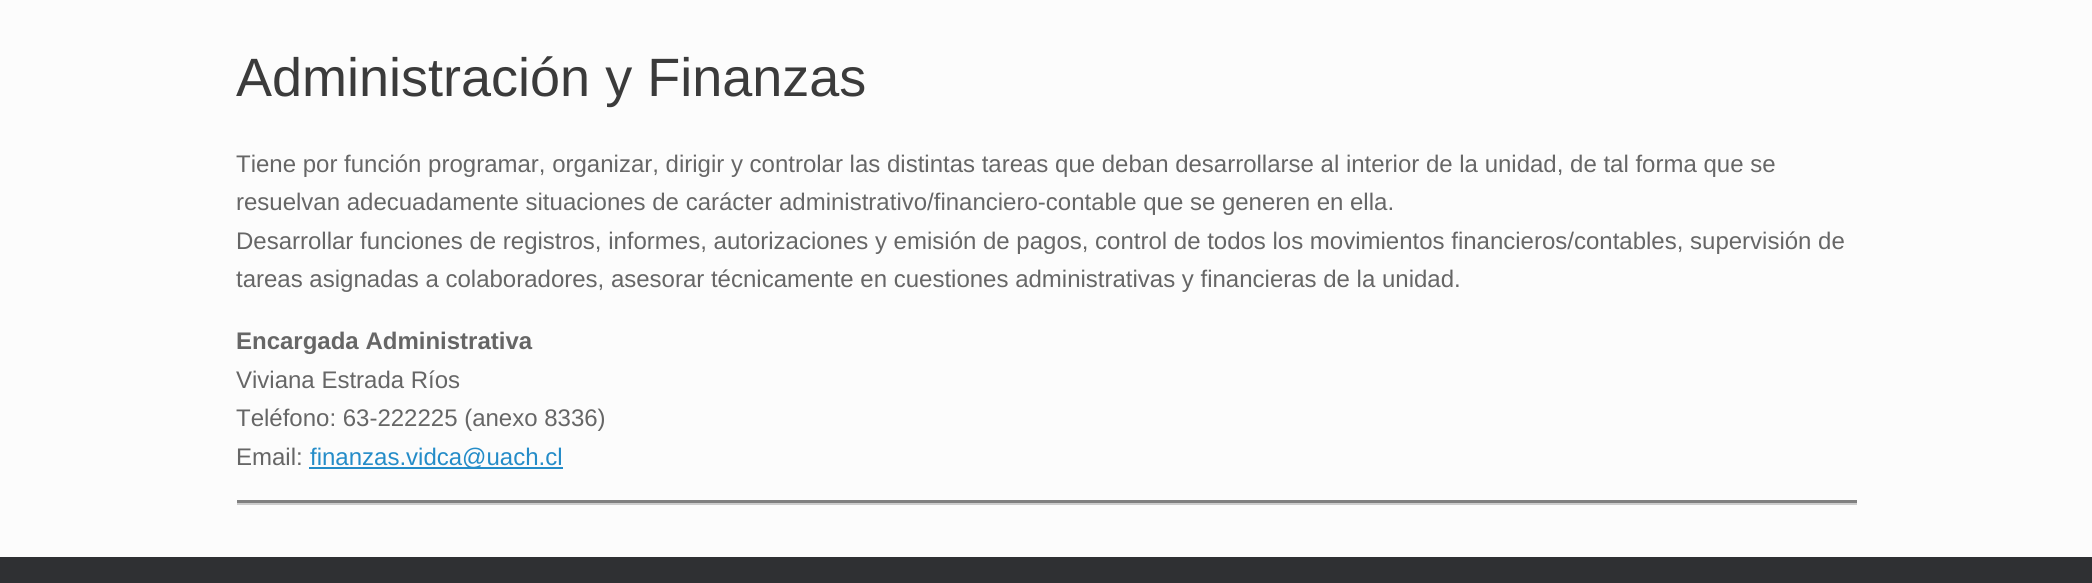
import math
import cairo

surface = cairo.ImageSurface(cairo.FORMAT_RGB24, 2092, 583)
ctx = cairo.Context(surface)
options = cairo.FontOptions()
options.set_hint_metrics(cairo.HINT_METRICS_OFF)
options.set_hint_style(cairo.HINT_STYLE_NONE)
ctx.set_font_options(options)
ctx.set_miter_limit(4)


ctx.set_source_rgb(0.184, 0.188, 0.2)
ctx.paint()
ctx.set_source_rgb(0.988, 0.988, 0.988)
ctx.rectangle(0, 0, 2092, 557)
ctx.fill()
ctx.select_font_face("Liberation Sans")
ctx.set_font_size(54)
ctx.set_source_rgb(0.231, 0.231, 0.231)
ctx.move_to(236, 96)
ctx.show_text("Administración y Finanzas")
ctx.set_font_size(24)
ctx.set_source_rgb(0.4, 0.4, 0.4)
ctx.move_to(236, 172)
ctx.show_text("Tiene por función programar, organizar, dirigir y controlar las distintas tareas que deban desarrollarse al interior de la unidad, de tal forma que se")
ctx.move_to(236, 210)
ctx.show_text("resuelvan adecuadamente situaciones de carácter administrativo/financiero-contable que se generen en ella.")
ctx.move_to(236, 249)
ctx.show_text("Desarrollar funciones de registros, informes, autorizaciones y emisión de pagos, control de todos los movimientos financieros/contables, supervisión de")
ctx.move_to(236, 287)
ctx.show_text("tareas asignadas a colaboradores, asesorar técnicamente en cuestiones administrativas y financieras de la unidad.")
ctx.select_font_face("Liberation Sans", cairo.FONT_SLANT_NORMAL, cairo.FONT_WEIGHT_BOLD)
ctx.move_to(236, 349)
ctx.show_text("Encargada Administrativa")
ctx.select_font_face("Liberation Sans")
ctx.move_to(236, 388)
ctx.show_text("Viviana Estrada Ríos")
ctx.move_to(236, 426)
ctx.show_text("Teléfono: 63-222225 (anexo 8336)")
ctx.move_to(236, 465)
ctx.show_text("Email:")
ctx.set_source_rgb(0.141, 0.549, 0.784)
ctx.rectangle(309, 467, 254, 2)
ctx.fill()
ctx.move_to(310, 465)
ctx.show_text("finanzas.vidca@uach.cl")
ctx.set_source_rgb(0.8, 0.8, 0.8)
ctx.rectangle(237, 503, 1620, 2)
ctx.fill()
ctx.set_source_rgb(0.502, 0.502, 0.502)
ctx.rectangle(237, 500, 1620, 3)
ctx.fill()
surface.write_to_png("page.png")
